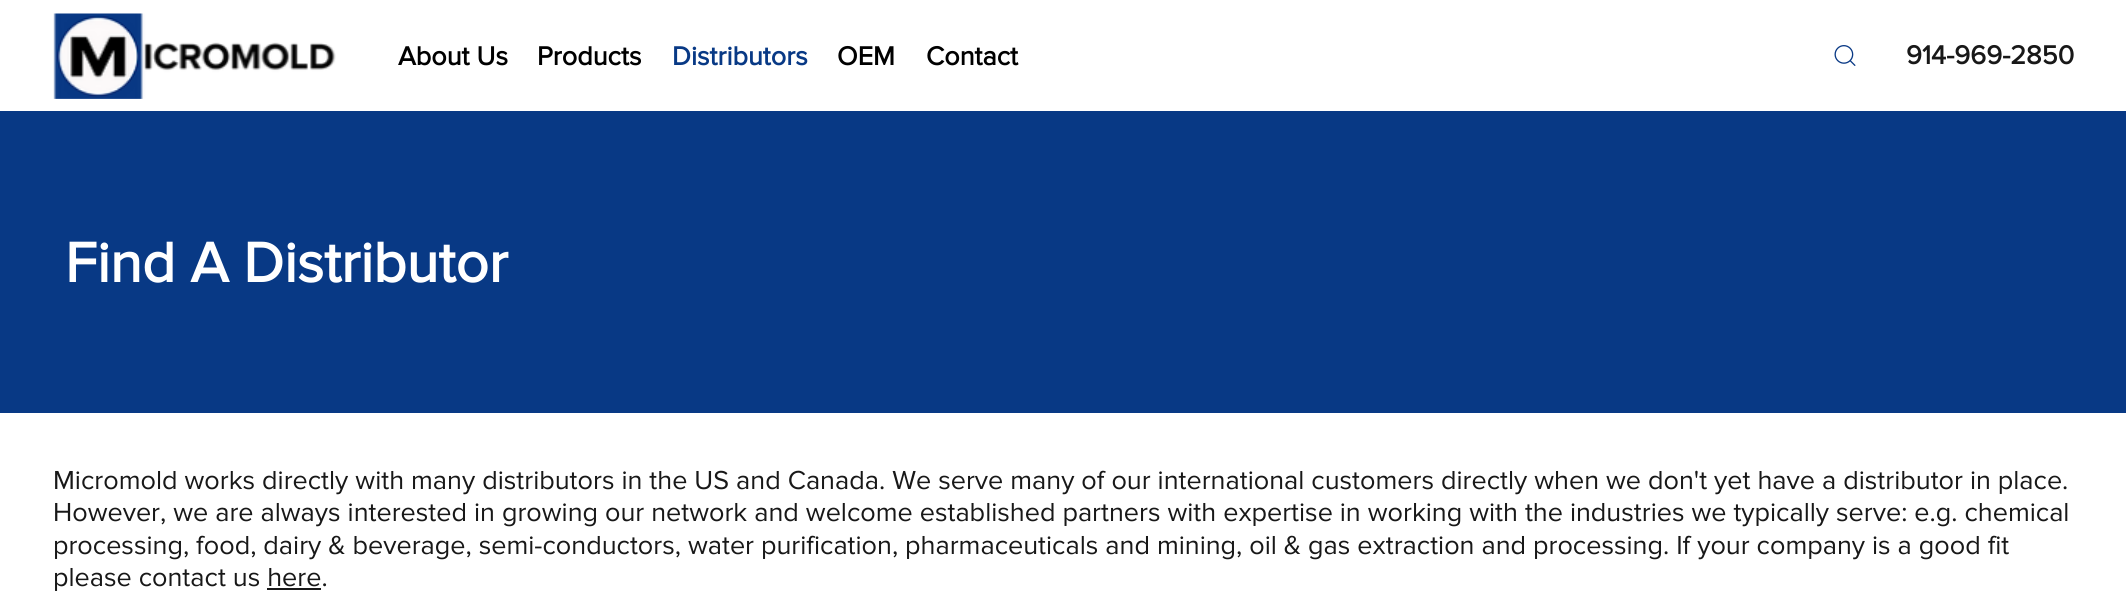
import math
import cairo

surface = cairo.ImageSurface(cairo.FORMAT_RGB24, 2126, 593)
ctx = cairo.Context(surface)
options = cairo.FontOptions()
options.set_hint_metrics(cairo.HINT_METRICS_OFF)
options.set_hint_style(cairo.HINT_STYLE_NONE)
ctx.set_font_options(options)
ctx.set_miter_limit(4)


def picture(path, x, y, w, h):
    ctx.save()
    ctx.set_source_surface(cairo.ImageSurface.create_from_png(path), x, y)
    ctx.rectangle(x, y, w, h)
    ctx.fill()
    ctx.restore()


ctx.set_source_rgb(1, 1, 1)
ctx.paint()
picture("img1.png", 53, 13, 283, 86)
ctx.select_font_face("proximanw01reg", cairo.FONT_SLANT_NORMAL, cairo.FONT_WEIGHT_BOLD)
ctx.set_font_size(27)
ctx.set_source_rgb(0, 0, 0)
ctx.move_to(398, 65)
ctx.show_text("About Us")
ctx.move_to(537, 65)
ctx.show_text("Products")
ctx.set_source_rgb(0.035, 0.224, 0.522)
ctx.move_to(672, 65)
ctx.show_text("Distributors")
ctx.set_source_rgb(0, 0, 0)
ctx.move_to(837, 65)
ctx.show_text("OEM")
ctx.move_to(926, 65)
ctx.show_text("Contact")
picture("img2.png", 1834, 45, 22, 21)
ctx.set_source_rgb(0.094, 0.094, 0.094)
ctx.move_to(1906, 64)
ctx.show_text("914-969-2850")
ctx.set_source_rgb(0.035, 0.224, 0.522)
ctx.rectangle(0, 111, 2126, 302)
ctx.fill()
ctx.set_font_size(58)
ctx.set_source_rgb(1, 1, 1)
ctx.move_to(65, 282)
ctx.show_text("Find A Distributor")
ctx.select_font_face("proximanw01reg")
ctx.set_font_size(27)
ctx.set_source_rgb(0.094, 0.094, 0.094)
ctx.move_to(53, 489)
ctx.show_text("Micromold works directly with many distributors in the US and Canada. We serve many of our international customers directly when we don't yet have a distributor in place.")
ctx.move_to(53, 521)
ctx.show_text("However, we are always interested in growing our network and welcome established partners with expertise in working with the industries we typically serve: e.g. chemical")
ctx.move_to(53, 554)
ctx.show_text("processing, food, dairy & beverage, semi-conductors, water purification, pharmaceuticals and mining, oil & gas extraction and processing. If your company is a good fit")
ctx.move_to(53, 586)
ctx.show_text("please contact us here.")
ctx.rectangle(267, 588, 54, 2)
ctx.fill()
surface.write_to_png("page.png")
